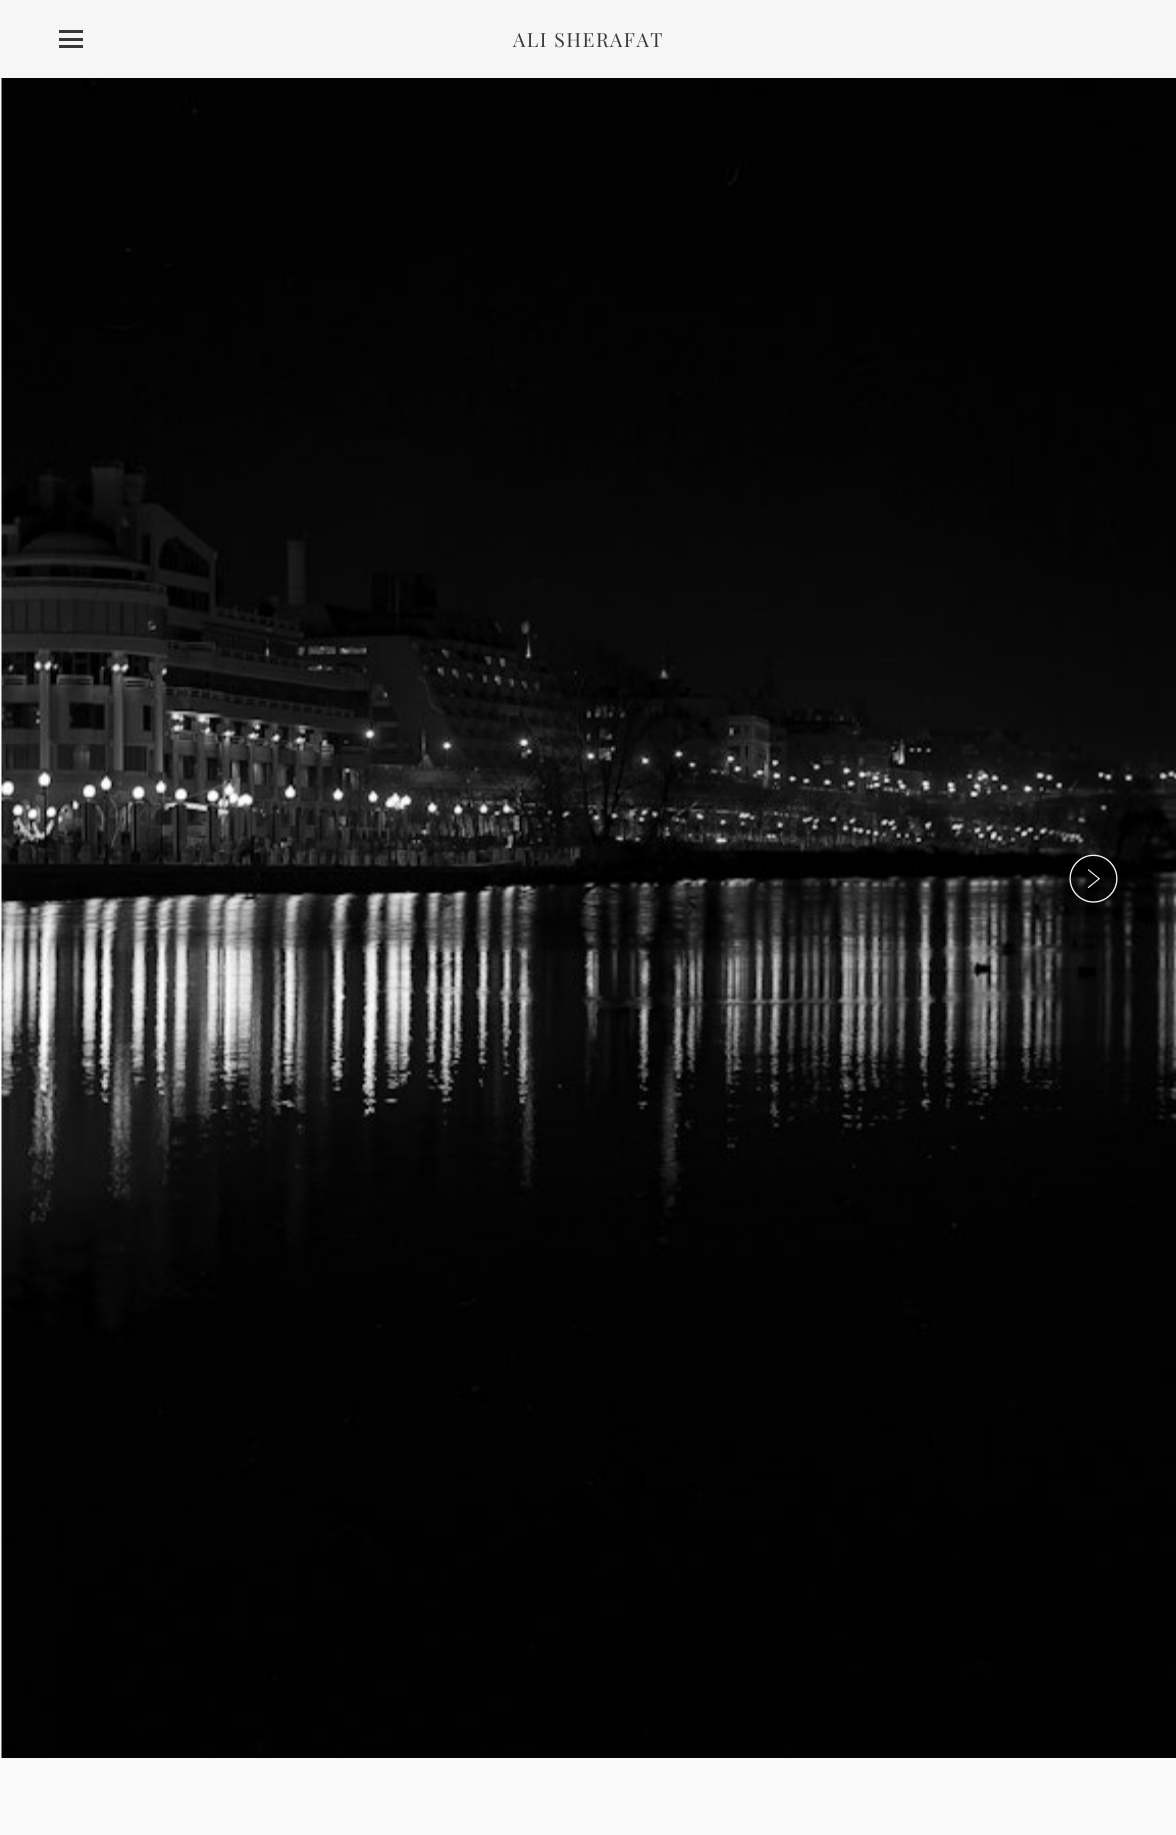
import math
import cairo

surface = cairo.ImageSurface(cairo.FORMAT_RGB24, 1176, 1835)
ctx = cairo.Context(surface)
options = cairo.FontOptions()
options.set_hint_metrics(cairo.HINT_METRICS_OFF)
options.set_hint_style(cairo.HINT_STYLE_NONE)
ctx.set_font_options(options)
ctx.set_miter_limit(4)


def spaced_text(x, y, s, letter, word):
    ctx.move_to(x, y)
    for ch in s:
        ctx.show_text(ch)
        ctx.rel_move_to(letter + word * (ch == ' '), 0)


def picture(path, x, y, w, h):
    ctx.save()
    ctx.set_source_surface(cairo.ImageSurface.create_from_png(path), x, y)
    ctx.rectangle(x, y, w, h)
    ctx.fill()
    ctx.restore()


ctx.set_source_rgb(0.976, 0.976, 0.976)
ctx.paint()
ctx.set_source_rgb(0.961, 0.961, 0.961)
ctx.rectangle(0, 0, 1176, 78)
ctx.fill()
ctx.set_source_rgb(0.216, 0.216, 0.216)
ctx.rectangle(59, 38, 24, 3)
ctx.fill()
ctx.rectangle(59, 30, 24, 3)
ctx.fill()
ctx.rectangle(59, 45, 24, 3)
ctx.fill()
ctx.select_font_face("Playfair Display")
ctx.set_font_size(19.5)
spaced_text(513, 47, "ALI SHERAFAT", 1.5, 0)
picture("img1.png", 1, 78, 1175, 1680)
picture("img2.png", 1069, 854, 49, 49)
surface.write_to_png("page.png")
